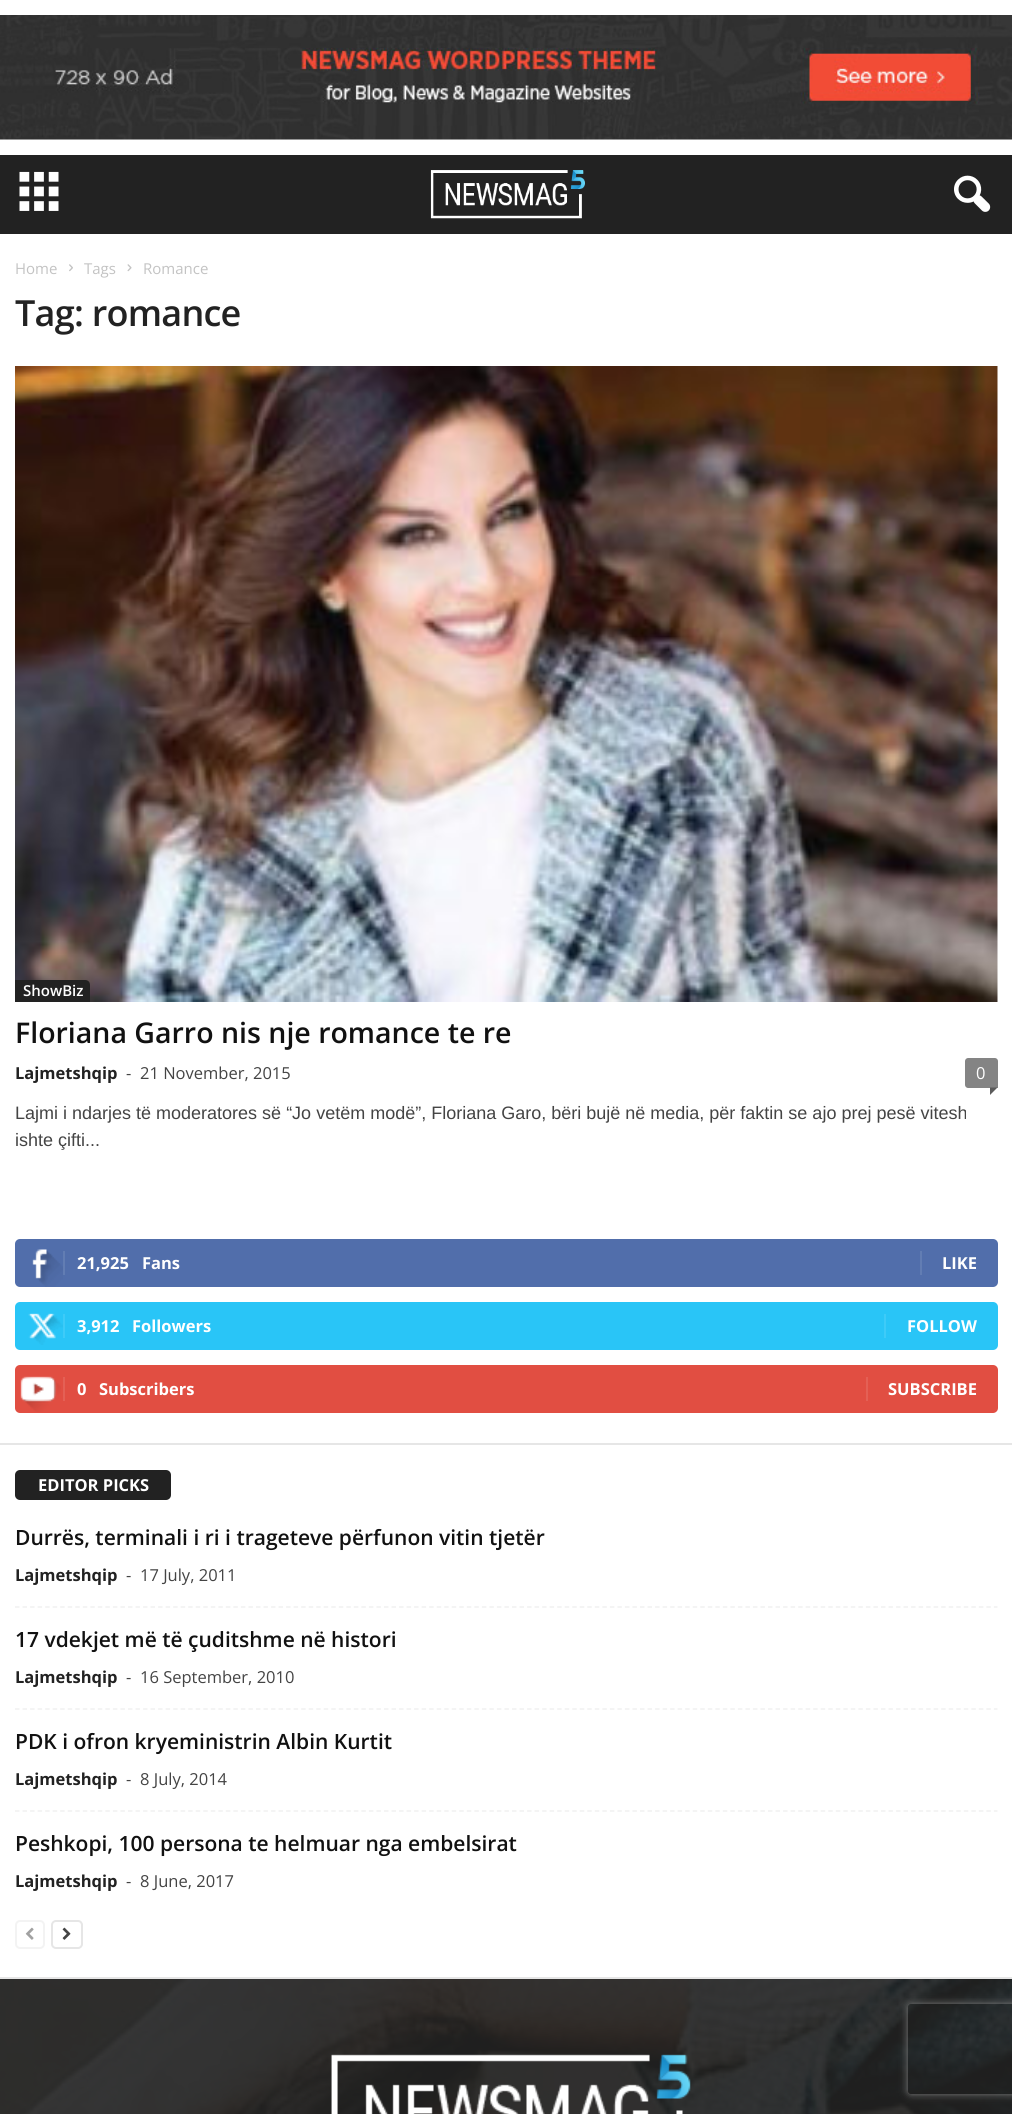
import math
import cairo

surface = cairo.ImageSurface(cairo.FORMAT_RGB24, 1012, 2114)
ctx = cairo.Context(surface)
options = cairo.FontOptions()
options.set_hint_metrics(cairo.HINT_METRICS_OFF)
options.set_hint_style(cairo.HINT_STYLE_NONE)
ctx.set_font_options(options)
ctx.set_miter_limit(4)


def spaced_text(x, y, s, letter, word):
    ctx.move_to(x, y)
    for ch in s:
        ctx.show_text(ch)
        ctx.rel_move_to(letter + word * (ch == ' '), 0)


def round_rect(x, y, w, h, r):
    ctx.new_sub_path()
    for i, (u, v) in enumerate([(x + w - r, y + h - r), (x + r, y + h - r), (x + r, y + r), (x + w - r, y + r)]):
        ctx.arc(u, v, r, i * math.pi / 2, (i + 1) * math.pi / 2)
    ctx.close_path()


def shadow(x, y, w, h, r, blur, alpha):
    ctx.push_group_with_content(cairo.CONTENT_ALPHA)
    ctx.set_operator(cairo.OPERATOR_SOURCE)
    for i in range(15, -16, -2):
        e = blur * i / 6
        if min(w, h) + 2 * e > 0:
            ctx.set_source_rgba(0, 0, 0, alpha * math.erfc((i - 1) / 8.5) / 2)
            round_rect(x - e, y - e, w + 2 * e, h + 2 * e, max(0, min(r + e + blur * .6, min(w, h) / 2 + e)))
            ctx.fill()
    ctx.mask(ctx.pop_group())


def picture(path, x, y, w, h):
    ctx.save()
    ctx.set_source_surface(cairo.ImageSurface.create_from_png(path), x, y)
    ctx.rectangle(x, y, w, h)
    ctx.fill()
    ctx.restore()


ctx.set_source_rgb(1, 1, 1)
ctx.paint()
picture("img1.png", 0, 15, 1012, 125)
ctx.set_source_rgb(0.133, 0.133, 0.133)
ctx.rectangle(0, 155, 1012, 79)
ctx.fill()
picture("img2.png", 19, 171, 40, 40)
picture("img3.png", 430, 170, 155, 49)
picture("img4.png", 954, 175, 37, 37)
ctx.set_source_rgb(0.902, 0.902, 0.902)
ctx.rectangle(0, 1977, 1012, 2)
ctx.fill()
ctx.select_font_face("Open Sans")
ctx.set_font_size(15)
ctx.set_source_rgb(0.765, 0.765, 0.765)
ctx.move_to(15, 274)
ctx.show_text("Home")
picture("img5.png", 69, 264, 4, 8)
ctx.move_to(84, 274)
ctx.show_text("Tags")
picture("img6.png", 127, 264, 5, 8)
ctx.move_to(143, 274)
ctx.show_text("Romance")
ctx.select_font_face("Open Sans SemiBold")
ctx.set_font_size(36)
ctx.set_source_rgb(0.133, 0.133, 0.133)
spaced_text(15, 326, "Tag: romance", -0.75, 0)
picture("img7.png", 15, 366, 983, 636)
ctx.new_path()
ctx.move_to(15, 980)
ctx.line_to(85, 980)
ctx.curve_to(88, 980, 90, 982, 90, 985)
ctx.line_to(90, 1002)
ctx.line_to(15, 1002)
ctx.close_path()
ctx.fill()
ctx.set_font_size(15)
ctx.set_source_rgb(1, 1, 1)
ctx.move_to(23, 996)
ctx.show_text("ShowBiz")
ctx.set_font_size(28.5)
ctx.set_source_rgb(0.067, 0.067, 0.067)
ctx.move_to(15, 1043)
ctx.show_text("Floriana Garro nis nje romance te re")
ctx.select_font_face("Open Sans", cairo.FONT_SLANT_NORMAL, cairo.FONT_WEIGHT_BOLD)
ctx.set_font_size(16.5)
ctx.set_source_rgb(0.133, 0.133, 0.133)
ctx.move_to(15, 1079)
ctx.show_text("Lajmetshqip")
ctx.select_font_face("Open Sans")
ctx.set_source_rgb(0.267, 0.267, 0.267)
ctx.move_to(126, 1079)
ctx.show_text("-")
ctx.move_to(140, 1079)
ctx.show_text("21 November, 2015")
ctx.set_source_rgb(0.518, 0.518, 0.518)
ctx.new_path()
ctx.move_to(968, 1058)
ctx.line_to(995, 1058)
ctx.curve_to(996.5, 1058, 998, 1059.5, 998, 1061)
ctx.line_to(998, 1088)
ctx.line_to(968, 1088)
ctx.curve_to(966.5, 1088, 965, 1086.5, 965, 1085)
ctx.line_to(965, 1061)
ctx.curve_to(965, 1059.5, 966.5, 1058, 968, 1058)
ctx.close_path()
ctx.fill()
ctx.set_source_rgb(1, 1, 1)
ctx.move_to(976, 1079)
ctx.show_text("0")
ctx.set_source_rgb(0.357, 0.357, 0.357)
ctx.new_path()
ctx.move_to(990, 1087.5)
ctx.line_to(997.5, 1087.5)
ctx.line_to(990, 1095)
ctx.close_path()
ctx.fill()
ctx.select_font_face("Liberation Sans")
ctx.set_font_size(18)
ctx.set_source_rgb(0.267, 0.267, 0.267)
ctx.move_to(15, 1119)
ctx.show_text("Lajmi i ndarjes të moderatores së “Jo vetëm modë”, Floriana Garo, bëri bujë në media, për faktin se ajo prej pesë vitesh")
ctx.move_to(15, 1146)
ctx.show_text("ishte çifti...")
ctx.set_source_rgb(0.318, 0.431, 0.671)
round_rect(15, 1239, 983, 48, 5)
ctx.fill()
picture("img8.png", 32, 1249, 31, 38)
ctx.set_source_rgb(0.384, 0.49, 0.702)
ctx.rectangle(63, 1251, 2, 24)
ctx.fill()
ctx.select_font_face("Open Sans", cairo.FONT_SLANT_NORMAL, cairo.FONT_WEIGHT_BOLD)
ctx.set_font_size(16.5)
ctx.set_source_rgb(1, 1, 1)
ctx.move_to(77, 1269)
ctx.show_text("21,925")
ctx.move_to(142, 1269)
ctx.show_text("Fans")
ctx.set_source_rgb(0.384, 0.49, 0.702)
ctx.rectangle(920, 1251, 2, 24)
ctx.fill()
ctx.set_source_rgb(1, 1, 1)
ctx.move_to(942, 1269)
ctx.show_text("LIKE")
ctx.set_source_rgb(0.161, 0.773, 0.965)
round_rect(15, 1302, 983, 48, 5)
ctx.fill()
picture("img9.png", 28, 1313, 35, 32)
ctx.set_source_rgb(0.243, 0.796, 0.969)
ctx.rectangle(63, 1314, 2, 24)
ctx.fill()
ctx.set_source_rgb(1, 1, 1)
ctx.move_to(77, 1332)
ctx.show_text("3,912")
ctx.move_to(132, 1332)
ctx.show_text("Followers")
ctx.set_source_rgb(0.243, 0.796, 0.969)
ctx.rectangle(884, 1314, 2, 24)
ctx.fill()
ctx.set_source_rgb(1, 1, 1)
ctx.move_to(907, 1332)
ctx.show_text("FOLLOW")
ctx.set_source_rgb(0.882, 0.306, 0.259)
round_rect(15, 1365, 983, 48, 5)
ctx.fill()
picture("img10.png", 20, 1376, 41, 36)
ctx.set_source_rgb(0.894, 0.376, 0.333)
ctx.rectangle(63, 1377, 2, 24)
ctx.fill()
ctx.set_source_rgb(1, 1, 1)
ctx.move_to(77, 1395)
ctx.show_text("0")
ctx.move_to(99, 1395)
ctx.show_text("Subscribers")
ctx.set_source_rgb(0.894, 0.376, 0.333)
ctx.rectangle(866, 1377, 2, 24)
ctx.fill()
ctx.set_source_rgb(1, 1, 1)
ctx.move_to(888, 1395)
ctx.show_text("SUBSCRIBE")
ctx.set_source_rgb(0.902, 0.902, 0.902)
ctx.rectangle(0, 1443, 1012, 2)
ctx.fill()
ctx.set_source_rgb(0.133, 0.133, 0.133)
round_rect(15, 1470, 156, 30, 5)
ctx.fill()
ctx.set_source_rgb(1, 1, 1)
ctx.move_to(38, 1491)
ctx.show_text("EDITOR PICKS")
ctx.new_path()
ctx.move_to(15, 1607)
ctx.line_to(997.5, 1607)
ctx.set_source_rgb(0.945, 0.945, 0.945)
ctx.set_line_width(1.5)
ctx.set_dash([4.5, 3.03])
ctx.stroke()
ctx.select_font_face("Open Sans SemiBold")
ctx.set_font_size(21)
ctx.set_source_rgb(0.067, 0.067, 0.067)
ctx.move_to(15, 1545)
ctx.show_text("Durrës, terminali i ri i trageteve përfunon vitin tjetër")
ctx.select_font_face("Open Sans", cairo.FONT_SLANT_NORMAL, cairo.FONT_WEIGHT_BOLD)
ctx.set_font_size(16.5)
ctx.set_source_rgb(0.133, 0.133, 0.133)
ctx.move_to(15, 1581)
ctx.show_text("Lajmetshqip")
ctx.select_font_face("Open Sans")
ctx.set_source_rgb(0.267, 0.267, 0.267)
ctx.move_to(126, 1581)
ctx.show_text("-")
ctx.move_to(140, 1581)
ctx.show_text("17 July, 2011")
ctx.new_path()
ctx.move_to(15, 1709)
ctx.line_to(997.5, 1709)
ctx.set_source_rgb(0.945, 0.945, 0.945)
ctx.stroke()
ctx.select_font_face("Open Sans SemiBold")
ctx.set_font_size(21)
ctx.set_source_rgb(0.067, 0.067, 0.067)
ctx.move_to(15, 1647)
ctx.show_text("17 vdekjet më të çuditshme në histori")
ctx.select_font_face("Open Sans", cairo.FONT_SLANT_NORMAL, cairo.FONT_WEIGHT_BOLD)
ctx.set_font_size(16.5)
ctx.set_source_rgb(0.133, 0.133, 0.133)
ctx.move_to(15, 1683)
ctx.show_text("Lajmetshqip")
ctx.select_font_face("Open Sans")
ctx.set_source_rgb(0.267, 0.267, 0.267)
ctx.move_to(126, 1683)
ctx.show_text("-")
ctx.move_to(140, 1683)
ctx.show_text("16 September, 2010")
ctx.new_path()
ctx.move_to(15, 1811)
ctx.line_to(997.5, 1811)
ctx.set_source_rgb(0.945, 0.945, 0.945)
ctx.stroke()
ctx.select_font_face("Open Sans SemiBold")
ctx.set_font_size(21)
ctx.set_source_rgb(0.067, 0.067, 0.067)
ctx.move_to(15, 1749)
ctx.show_text("PDK i ofron kryeministrin Albin Kurtit")
ctx.select_font_face("Open Sans", cairo.FONT_SLANT_NORMAL, cairo.FONT_WEIGHT_BOLD)
ctx.set_font_size(16.5)
ctx.set_source_rgb(0.133, 0.133, 0.133)
ctx.move_to(15, 1785)
ctx.show_text("Lajmetshqip")
ctx.select_font_face("Open Sans")
ctx.set_source_rgb(0.267, 0.267, 0.267)
ctx.move_to(126, 1785)
ctx.show_text("-")
ctx.move_to(140, 1785)
ctx.show_text("8 July, 2014")
ctx.select_font_face("Open Sans SemiBold")
ctx.set_font_size(21)
ctx.set_source_rgb(0.067, 0.067, 0.067)
ctx.move_to(15, 1851)
ctx.show_text("Peshkopi, 100 persona te helmuar nga embelsirat")
ctx.select_font_face("Open Sans", cairo.FONT_SLANT_NORMAL, cairo.FONT_WEIGHT_BOLD)
ctx.set_font_size(16.5)
ctx.set_source_rgb(0.133, 0.133, 0.133)
ctx.move_to(15, 1887)
ctx.show_text("Lajmetshqip")
ctx.select_font_face("Open Sans")
ctx.set_source_rgb(0.267, 0.267, 0.267)
ctx.move_to(126, 1887)
ctx.show_text("-")
ctx.move_to(140, 1887)
ctx.show_text("8 June, 2017")
round_rect(16, 1921, 28, 27, 4)
ctx.set_source_rgb(0.953, 0.953, 0.953)
ctx.set_line_width(2)
ctx.set_dash([])
ctx.stroke()
picture("img11.png", 25, 1927, 9, 13)
round_rect(52, 1921, 30, 27, 4)
ctx.set_source_rgb(0.902, 0.902, 0.902)
ctx.stroke()
picture("img12.png", 62, 1927, 9, 13)
ctx.set_source_rgb(0.133, 0.133, 0.133)
ctx.rectangle(0, 1979, 1012, 135)
ctx.fill()
picture("img13.png", 0, 1979, 1012, 135)
picture("img14.png", 331, 2054, 360, 60)
ctx.save()
ctx.set_fill_rule(cairo.FILL_RULE_EVEN_ODD)
ctx.new_path()
ctx.move_to(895, 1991)
ctx.line_to(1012, 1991)
ctx.line_to(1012, 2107)
ctx.line_to(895, 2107)
ctx.close_path()
ctx.move_to(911, 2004)
ctx.line_to(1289, 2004)
ctx.curve_to(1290.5, 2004, 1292, 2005.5, 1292, 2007)
ctx.line_to(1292, 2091)
ctx.curve_to(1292, 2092.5, 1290.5, 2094, 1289, 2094)
ctx.line_to(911, 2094)
ctx.curve_to(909.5, 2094, 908, 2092.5, 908, 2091)
ctx.line_to(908, 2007)
ctx.curve_to(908, 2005.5, 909.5, 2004, 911, 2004)
ctx.close_path()
ctx.clip()
ctx.set_source_rgb(0.502, 0.502, 0.502)
shadow(908, 2004, 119, 90, 3, 4, 1)
ctx.restore()
surface.write_to_png("page.png")
